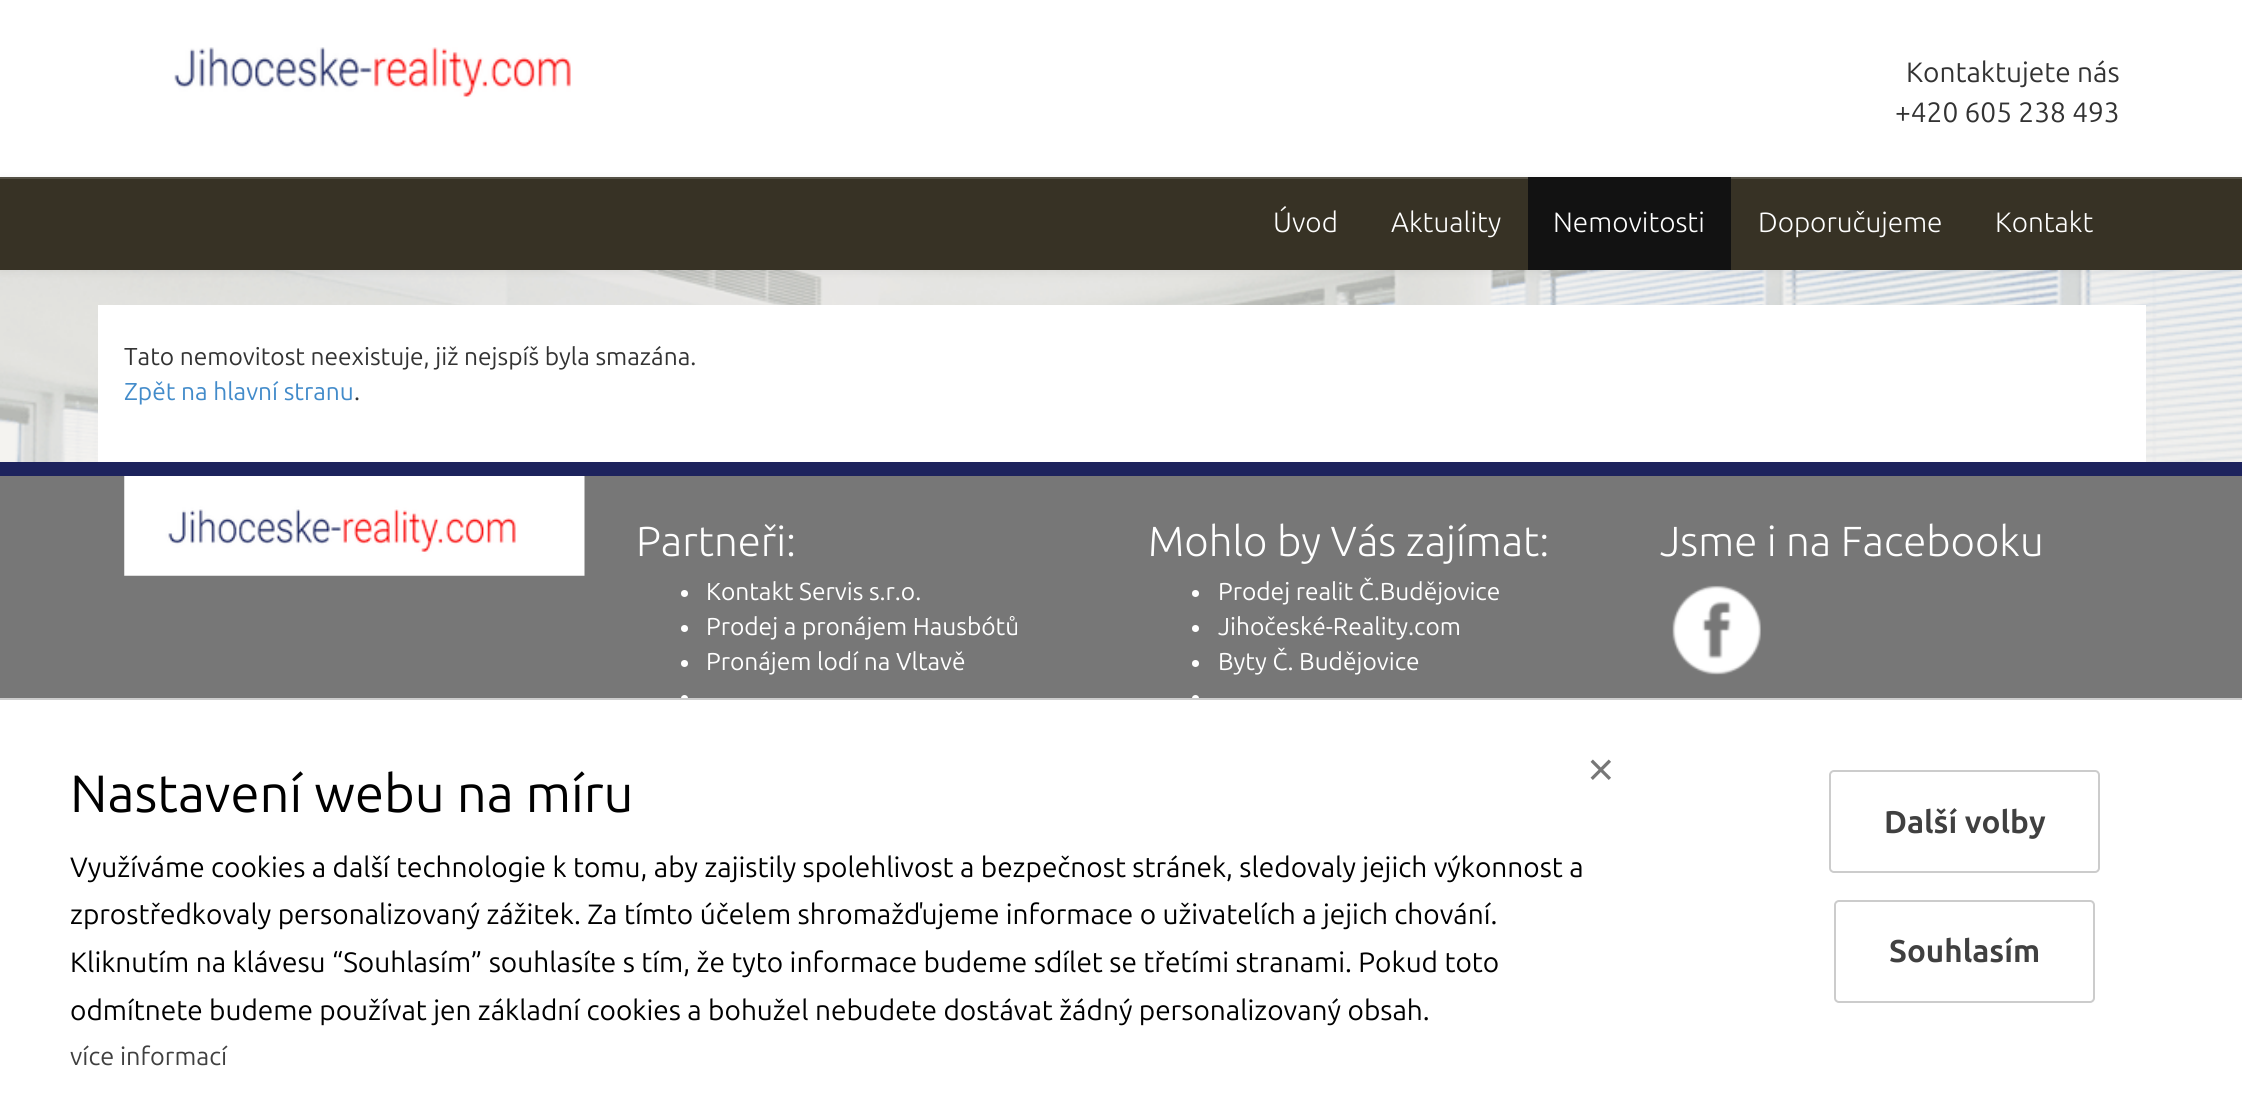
import math
import cairo

surface = cairo.ImageSurface(cairo.FORMAT_RGB24, 2242, 1107)
ctx = cairo.Context(surface)
options = cairo.FontOptions()
options.set_hint_metrics(cairo.HINT_METRICS_OFF)
options.set_hint_style(cairo.HINT_STYLE_NONE)
ctx.set_font_options(options)
ctx.set_miter_limit(4)


def round_rect(x, y, w, h, r):
    ctx.new_sub_path()
    for i, (u, v) in enumerate([(x + w - r, y + h - r), (x + r, y + h - r), (x + r, y + r), (x + w - r, y + r)]):
        ctx.arc(u, v, r, i * math.pi / 2, (i + 1) * math.pi / 2)
    ctx.close_path()


def shadow(x, y, w, h, r, blur, alpha):
    ctx.push_group_with_content(cairo.CONTENT_ALPHA)
    ctx.set_operator(cairo.OPERATOR_SOURCE)
    for i in range(15, -16, -2):
        e = blur * i / 6
        if min(w, h) + 2 * e > 0:
            ctx.set_source_rgba(0, 0, 0, alpha * math.erfc((i - 1) / 8.5) / 2)
            round_rect(x - e, y - e, w + 2 * e, h + 2 * e, max(0, min(r + e + blur * .6, min(w, h) / 2 + e)))
            ctx.fill()
    ctx.mask(ctx.pop_group())


def picture(path, x, y, w, h):
    ctx.save()
    ctx.set_source_surface(cairo.ImageSurface.create_from_png(path), x, y)
    ctx.rectangle(x, y, w, h)
    ctx.fill()
    ctx.restore()


ctx.set_source_rgb(1, 1, 1)
ctx.paint()
picture("img1.png", 0, 270, 2242, 192)
picture("img2.png", 174, 47, 397, 50)
ctx.select_font_face("Ubuntu")
ctx.set_font_size(28)
ctx.set_source_rgb(0.2, 0.2, 0.2)
ctx.move_to(1906, 82)
ctx.show_text("Kontaktujete nás")
ctx.move_to(1895, 122)
ctx.show_text("+420 605 238 493")
ctx.set_source_rgb(0, 0, 0)
shadow(0, 179, 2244, 92, 0, 4.5, 0.07)
ctx.set_source_rgb(0.216, 0.196, 0.145)
ctx.rectangle(0, 179, 2242, 91)
ctx.fill()
ctx.set_source_rgb(0.333, 0.318, 0.275)
ctx.rectangle(0, 177, 2242, 2)
ctx.fill()
ctx.select_font_face("Ubuntu Light")
ctx.set_source_rgb(1, 1, 1)
ctx.move_to(1273, 232)
ctx.show_text("Úvod")
ctx.move_to(1391, 232)
ctx.show_text("Aktuality")
ctx.set_source_rgb(0.071, 0.071, 0.071)
ctx.rectangle(1528, 177, 203, 93)
ctx.fill()
ctx.set_source_rgb(1, 1, 1)
ctx.move_to(1553, 232)
ctx.show_text("Nemovitosti")
ctx.move_to(1758, 232)
ctx.show_text("Doporučujeme")
ctx.move_to(1995, 232)
ctx.show_text("Kontakt")
ctx.rectangle(98, 305, 2048, 157)
ctx.fill()
ctx.select_font_face("Ubuntu")
ctx.set_font_size(24.5)
ctx.set_source_rgb(0.2, 0.2, 0.2)
ctx.move_to(124, 365)
ctx.show_text("Tato nemovitost neexistuje, již nejspíš byla smazána.")
ctx.set_source_rgb(0.259, 0.545, 0.792)
ctx.move_to(124, 400)
ctx.show_text("Zpět na hlavní stranu")
ctx.set_source_rgb(0.2, 0.2, 0.2)
ctx.move_to(354, 400)
ctx.show_text(".")
ctx.set_source_rgb(0.467, 0.467, 0.467)
ctx.rectangle(0, 476, 2242, 222)
ctx.fill()
ctx.set_source_rgb(0.114, 0.137, 0.365)
ctx.rectangle(0, 462, 2242, 14)
ctx.fill()
picture("img3.png", 124, 476, 461, 100)
ctx.select_font_face("Ubuntu Light")
ctx.set_font_size(42)
ctx.set_source_rgb(1, 1, 1)
ctx.move_to(636, 556)
ctx.show_text("Partneři:")
ctx.new_path()
ctx.arc(684.5, 593.5, 3.5, 0, 2 * math.pi)
ctx.fill()
ctx.select_font_face("Ubuntu")
ctx.set_font_size(24.5)
ctx.move_to(706, 600)
ctx.show_text("Kontakt Servis s.r.o.")
ctx.new_path()
ctx.arc(684.5, 628.5, 3.5, 0, 2 * math.pi)
ctx.fill()
ctx.move_to(706, 635)
ctx.show_text("Prodej a pronájem Hausbótů")
ctx.new_path()
ctx.arc(684.5, 663.5, 3.5, 0, 2 * math.pi)
ctx.fill()
ctx.move_to(706, 670)
ctx.show_text("Pronájem lodí na Vltavě")
ctx.new_path()
ctx.arc(684.5, 698.5, 3.5, 0, 2 * math.pi)
ctx.fill()
ctx.select_font_face("Ubuntu Light")
ctx.set_font_size(42)
ctx.move_to(1148, 556)
ctx.show_text("Mohlo by Vás zajímat:")
ctx.new_path()
ctx.arc(1195.5, 593.5, 3.5, 0, 2 * math.pi)
ctx.fill()
ctx.select_font_face("Ubuntu")
ctx.set_font_size(24.5)
ctx.move_to(1218, 600)
ctx.show_text("Prodej realit Č.Budějovice")
ctx.new_path()
ctx.arc(1195.5, 628.5, 3.5, 0, 2 * math.pi)
ctx.fill()
ctx.move_to(1218, 635)
ctx.show_text("Jihočeské-Reality.com")
ctx.new_path()
ctx.arc(1195.5, 663.5, 3.5, 0, 2 * math.pi)
ctx.fill()
ctx.move_to(1218, 670)
ctx.show_text("Byty Č. Budějovice")
ctx.new_path()
ctx.arc(1195.5, 698.5, 3.5, 0, 2 * math.pi)
ctx.fill()
ctx.select_font_face("Ubuntu Light")
ctx.set_font_size(42)
ctx.move_to(1660, 556)
ctx.show_text("Jsme i na Facebooku")
picture("img4.png", 1672, 585, 89, 90)
ctx.set_source_rgb(0.8, 0.8, 0.8)
ctx.rectangle(0, 698, 2242, 2)
ctx.fill()
ctx.select_font_face("Ubuntu")
ctx.set_font_size(52.5)
ctx.set_source_rgb(0, 0, 0)
ctx.move_to(70, 812)
ctx.show_text("Nastavení webu na míru")
ctx.set_source_rgb(0.467, 0.467, 0.467)
ctx.move_to(1586, 785)
ctx.show_text("×")
ctx.set_font_size(28)
ctx.set_source_rgb(0, 0, 0)
ctx.move_to(70, 877)
ctx.show_text("Využíváme cookies a další technologie k tomu, aby zajistily spolehlivost a bezpečnost stránek, sledovaly jejich výkonnost a")
ctx.move_to(70, 924)
ctx.show_text("zprostředkovaly personalizovaný zážitek. Za tímto účelem shromažďujeme informace o uživatelích a jejich chování.")
ctx.move_to(70, 972)
ctx.show_text("Kliknutím na klávesu “Souhlasím” souhlasíte s tím, že tyto informace budeme sdílet se třetími stranami. Pokud toto")
ctx.move_to(70, 1020)
ctx.show_text("odmítnete budeme používat jen základní cookies a bohužel nebudete dostávat žádný personalizovaný obsah.")
ctx.set_font_size(25.25)
ctx.set_source_rgb(0.251, 0.251, 0.251)
ctx.move_to(70, 1065)
ctx.show_text("více informací")
round_rect(1830, 771, 269, 101, 4)
ctx.set_source_rgb(0.8, 0.8, 0.8)
ctx.stroke()
ctx.select_font_face("Ubuntu", cairo.FONT_SLANT_NORMAL, cairo.FONT_WEIGHT_BOLD)
ctx.set_font_size(31.5)
ctx.set_source_rgb(0.251, 0.251, 0.251)
ctx.move_to(1884, 833)
ctx.show_text("Další volby")
round_rect(1835, 901, 259, 101, 4)
ctx.set_source_rgb(0.8, 0.8, 0.8)
ctx.stroke()
ctx.set_source_rgb(0.251, 0.251, 0.251)
ctx.move_to(1889, 962)
ctx.show_text("Souhlasím")
surface.write_to_png("page.png")
